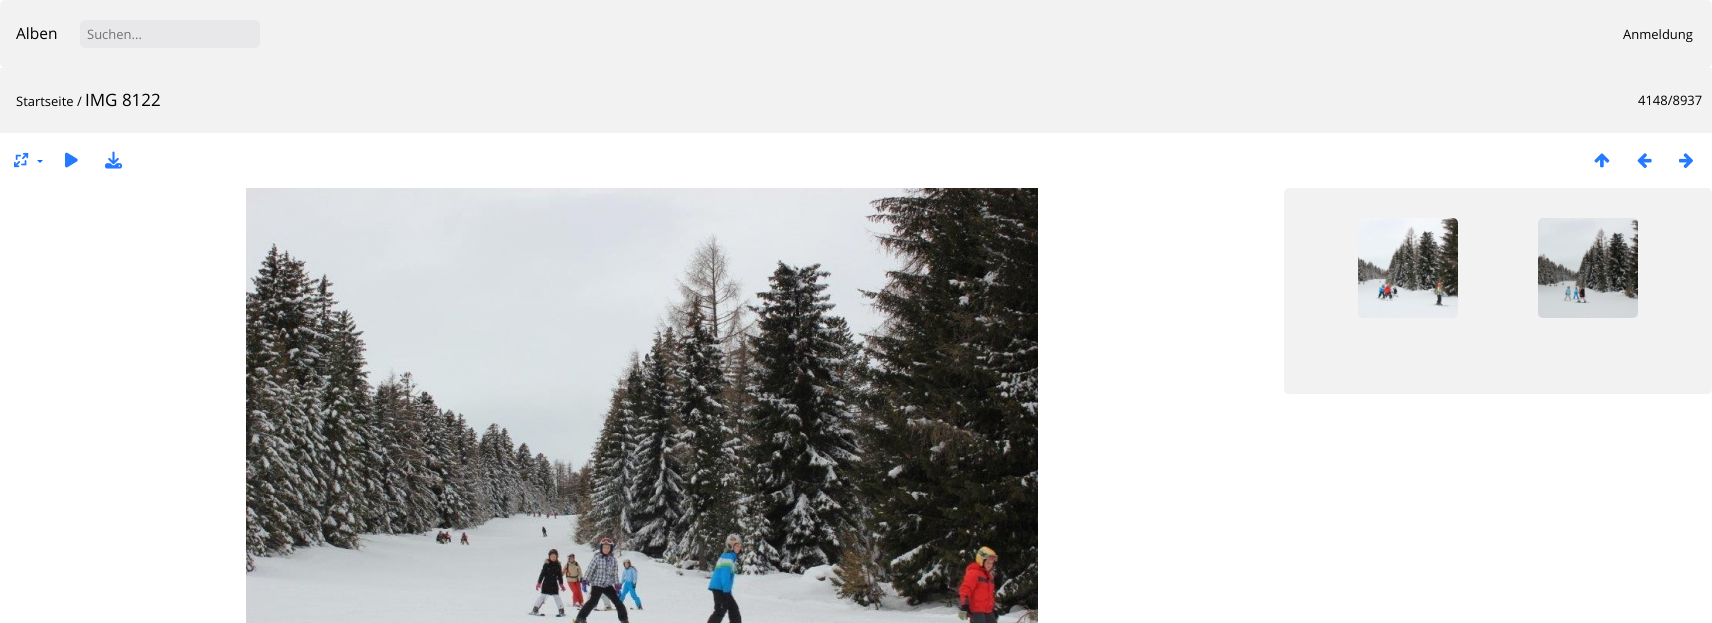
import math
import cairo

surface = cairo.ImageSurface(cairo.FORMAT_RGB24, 1712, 623)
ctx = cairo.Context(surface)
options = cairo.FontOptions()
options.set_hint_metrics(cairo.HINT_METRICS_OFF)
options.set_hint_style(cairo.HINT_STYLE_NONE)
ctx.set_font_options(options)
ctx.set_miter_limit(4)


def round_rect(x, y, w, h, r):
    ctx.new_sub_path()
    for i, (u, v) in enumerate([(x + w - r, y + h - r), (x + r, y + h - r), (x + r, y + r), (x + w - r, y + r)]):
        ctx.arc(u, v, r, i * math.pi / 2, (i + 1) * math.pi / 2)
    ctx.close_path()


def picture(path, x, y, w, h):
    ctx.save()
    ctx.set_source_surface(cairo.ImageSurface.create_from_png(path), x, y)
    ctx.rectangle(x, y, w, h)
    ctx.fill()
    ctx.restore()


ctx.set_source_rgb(1, 1, 1)
ctx.paint()
ctx.set_source_rgb(0.949, 0.949, 0.949)
round_rect(0, 0, 1712, 68, 5)
ctx.fill()
ctx.select_font_face("Open Sans")
ctx.set_font_size(15.5)
ctx.set_source_rgb(0, 0, 0)
ctx.move_to(16, 39)
ctx.show_text("Alben")
ctx.set_source_rgb(0.91, 0.91, 0.918)
round_rect(80, 20, 180, 28, 5)
ctx.fill()
ctx.set_font_size(13)
ctx.set_source_rgb(0.443, 0.443, 0.459)
ctx.move_to(87, 39)
ctx.show_text("Suchen...")
ctx.set_source_rgb(0, 0, 0)
ctx.move_to(1623, 39)
ctx.show_text("Anmeldung")
ctx.set_source_rgb(0.949, 0.949, 0.949)
ctx.rectangle(0, 68, 1712, 65)
ctx.fill()
ctx.set_source_rgb(0, 0, 0)
ctx.move_to(16, 106)
ctx.show_text("Startseite /")
ctx.set_font_size(17)
ctx.move_to(85, 106)
ctx.show_text("IMG 8122")
ctx.set_font_size(13)
ctx.move_to(1638, 105)
ctx.show_text("4148/8937")
picture("img1.png", 14, 152, 15, 16)
ctx.set_source_rgb(0.043, 0.416, 1)
ctx.new_path()
ctx.move_to(37, 160)
ctx.line_to(43, 160)
ctx.line_to(40, 163)
ctx.close_path()
ctx.fill()
picture("img2.png", 65, 152, 13, 16)
picture("img3.png", 105, 151, 17, 18)
picture("img4.png", 1594, 153, 16, 15)
picture("img5.png", 1637, 153, 15, 15)
picture("img6.png", 1679, 153, 14, 15)
picture("img7.png", 246, 188, 792, 435)
ctx.set_source_rgb(0.949, 0.949, 0.949)
round_rect(1284, 188, 428, 206, 5)
ctx.fill()
picture("img8.png", 1358, 218, 100, 100)
picture("img9.png", 1538, 218, 100, 100)
surface.write_to_png("page.png")
